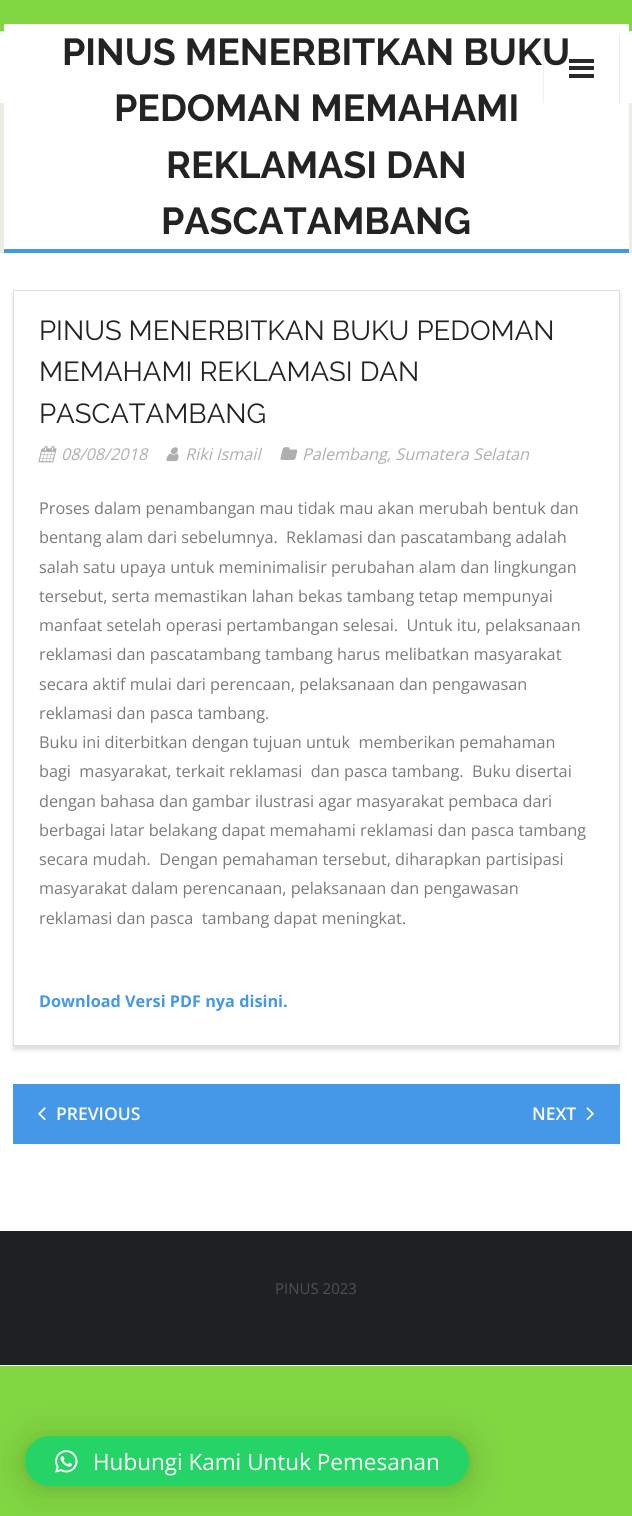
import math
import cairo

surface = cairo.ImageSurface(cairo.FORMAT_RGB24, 632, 1516)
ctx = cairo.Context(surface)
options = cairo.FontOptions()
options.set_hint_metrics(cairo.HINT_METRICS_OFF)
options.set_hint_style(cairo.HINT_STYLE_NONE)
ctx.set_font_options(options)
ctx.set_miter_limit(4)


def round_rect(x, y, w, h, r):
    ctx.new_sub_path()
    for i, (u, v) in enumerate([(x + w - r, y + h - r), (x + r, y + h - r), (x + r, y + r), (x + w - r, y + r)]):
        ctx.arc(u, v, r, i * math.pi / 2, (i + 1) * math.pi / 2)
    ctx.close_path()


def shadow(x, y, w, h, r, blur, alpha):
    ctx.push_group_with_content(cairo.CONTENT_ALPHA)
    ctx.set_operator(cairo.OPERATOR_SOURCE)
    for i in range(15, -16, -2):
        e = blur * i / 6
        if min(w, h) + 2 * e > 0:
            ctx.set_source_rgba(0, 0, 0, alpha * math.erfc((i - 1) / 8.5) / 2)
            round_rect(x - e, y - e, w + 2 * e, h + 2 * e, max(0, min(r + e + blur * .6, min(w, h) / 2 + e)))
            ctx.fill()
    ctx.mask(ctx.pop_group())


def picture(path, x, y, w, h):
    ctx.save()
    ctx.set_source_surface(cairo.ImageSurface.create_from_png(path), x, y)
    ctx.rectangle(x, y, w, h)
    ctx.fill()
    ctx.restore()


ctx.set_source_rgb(0.506, 0.843, 0.259)
ctx.paint()
ctx.set_source_rgb(1, 1, 1)
ctx.rectangle(0, 32, 632, 1199)
ctx.fill()
ctx.set_source_rgb(0.933, 0.933, 0.933)
ctx.rectangle(0, 31, 632, 1)
ctx.fill()
ctx.rectangle(0, 1365, 632, 1)
ctx.fill()
ctx.rectangle(0, 33, 632, 1)
ctx.fill()
ctx.set_source_rgb(0.933, 0.929, 0.894)
ctx.rectangle(0, 103, 632, 150)
ctx.fill()
ctx.set_source_rgb(1, 1, 1)
ctx.rectangle(4, 24, 625, 225)
ctx.fill()
ctx.set_source_rgb(0.267, 0.596, 0.906)
ctx.rectangle(4, 249, 625, 4)
ctx.fill()
ctx.select_font_face("Raleway", cairo.FONT_SLANT_NORMAL, cairo.FONT_WEIGHT_BOLD)
ctx.set_font_size(37.5)
ctx.set_source_rgb(0.137, 0.137, 0.137)
ctx.move_to(62, 65)
ctx.show_text("PINUS MENERBITKAN BUKU")
ctx.move_to(114, 121)
ctx.show_text("PEDOMAN MEMAHAMI")
ctx.move_to(166, 178)
ctx.show_text("REKLAMASI DAN")
ctx.move_to(161, 234)
ctx.show_text("PASCATAMBANG")
ctx.set_source_rgb(0.933, 0.933, 0.933)
ctx.rectangle(619, 34, 1, 69)
ctx.fill()
ctx.rectangle(543, 34, 1, 69)
ctx.fill()
ctx.set_source_rgb(0.161, 0.161, 0.161)
ctx.rectangle(569, 59, 25, 4)
ctx.fill()
ctx.rectangle(569, 66, 25, 4)
ctx.fill()
ctx.rectangle(569, 74, 25, 4)
ctx.fill()
ctx.save()
ctx.set_fill_rule(cairo.FILL_RULE_EVEN_ODD)
ctx.new_path()
ctx.move_to(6, 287)
ctx.line_to(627, 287)
ctx.line_to(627, 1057)
ctx.line_to(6, 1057)
ctx.close_path()
ctx.move_to(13, 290)
ctx.line_to(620, 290)
ctx.line_to(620, 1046)
ctx.line_to(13, 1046)
ctx.close_path()
ctx.clip()
ctx.set_source_rgb(0.137, 0.137, 0.137)
shadow(13, 294, 607, 756, 0, 2, 0.15)
ctx.restore()
ctx.rectangle(13.5, 290.5, 606, 755)
ctx.set_source_rgb(0.871, 0.871, 0.871)
ctx.set_line_width(1)
ctx.stroke()
ctx.select_font_face("Raleway")
ctx.set_font_size(27.5)
ctx.set_source_rgb(0.137, 0.137, 0.137)
ctx.move_to(39, 340)
ctx.show_text("PINUS MENERBITKAN BUKU PEDOMAN")
ctx.move_to(39, 381)
ctx.show_text("MEMAHAMI REKLAMASI DAN")
ctx.move_to(39, 423)
ctx.show_text("PASCATAMBANG")
picture("img1.png", 38, 446, 19, 17)
ctx.select_font_face("Open Sans", cairo.FONT_SLANT_ITALIC)
ctx.set_font_size(16.25)
ctx.set_source_rgb(0.686, 0.686, 0.686)
ctx.move_to(61, 460)
ctx.show_text("08/08/2018")
picture("img2.png", 166, 447, 13, 15)
ctx.move_to(185, 460)
ctx.show_text("Riki Ismail")
picture("img3.png", 280, 447, 18, 13)
ctx.move_to(302, 460)
ctx.show_text("Palembang, Sumatera Selatan")
ctx.select_font_face("Open Sans")
ctx.set_source_rgb(0.478, 0.478, 0.478)
ctx.move_to(39, 514)
ctx.show_text("Proses dalam penambangan mau tidak mau akan merubah bentuk dan")
ctx.move_to(39, 543)
ctx.show_text("bentang alam dari sebelumnya.  Reklamasi dan pascatambang adalah")
ctx.move_to(39, 573)
ctx.show_text("salah satu upaya untuk meminimalisir perubahan alam dan lingkungan")
ctx.move_to(39, 602)
ctx.show_text("tersebut, serta memastikan lahan bekas tambang tetap mempunyai")
ctx.move_to(39, 631)
ctx.show_text("manfaat setelah operasi pertambangan selesai.  Untuk itu, pelaksanaan")
ctx.move_to(39, 660)
ctx.show_text("reklamasi dan pascatambang tambang harus melibatkan masyarakat")
ctx.move_to(39, 690)
ctx.show_text("secara aktif mulai dari perencaan, pelaksanaan dan pengawasan")
ctx.move_to(39, 719)
ctx.show_text("reklamasi dan pasca tambang.")
ctx.move_to(39, 748)
ctx.show_text("Buku ini diterbitkan dengan tujuan untuk  memberikan pemahaman")
ctx.move_to(39, 777)
ctx.show_text("bagi  masyarakat, terkait reklamasi  dan pasca tambang.  Buku disertai")
ctx.move_to(39, 807)
ctx.show_text("dengan bahasa dan gambar ilustrasi agar masyarakat pembaca dari")
ctx.move_to(39, 836)
ctx.show_text("berbagai latar belakang dapat memahami reklamasi dan pasca tambang")
ctx.move_to(39, 865)
ctx.show_text("secara mudah.  Dengan pemahaman tersebut, diharapkan partisipasi")
ctx.move_to(39, 894)
ctx.show_text("masyarakat dalam perencanaan, pelaksanaan dan pengawasan")
ctx.move_to(39, 924)
ctx.show_text("reklamasi dan pasca  tambang dapat meningkat.")
ctx.select_font_face("Open Sans", cairo.FONT_SLANT_NORMAL, cairo.FONT_WEIGHT_BOLD)
ctx.set_source_rgb(0.267, 0.596, 0.906)
ctx.move_to(39, 1007)
ctx.show_text("Download Versi PDF nya disini.")
ctx.rectangle(13, 1084, 607, 60)
ctx.fill()
picture("img4.png", 38, 1107, 8, 14)
ctx.select_font_face("Open Sans SemiBold")
ctx.set_font_size(17.5)
ctx.set_source_rgb(1, 1, 1)
ctx.move_to(56, 1120)
ctx.show_text("PREVIOUS")
ctx.move_to(532, 1120)
ctx.show_text("NEXT")
picture("img5.png", 586, 1107, 8, 14)
ctx.set_source_rgb(0.118, 0.125, 0.129)
ctx.rectangle(0, 1231, 632, 134)
ctx.fill()
ctx.select_font_face("Open Sans")
ctx.set_font_size(15)
ctx.set_source_rgb(0.298, 0.318, 0.329)
ctx.move_to(275, 1294)
ctx.show_text("PINUS 2023")
ctx.set_source_rgb(0, 0, 0)
shadow(25, 1439, 444, 50, 25, 20, 0.16)
shadow(25, 1438, 444, 50, 25, 4, 0.06)
ctx.set_source_rgb(0.145, 0.827, 0.4)
round_rect(25, 1436, 444, 50, 25)
ctx.fill()
picture("img6.png", 55, 1450, 23, 23)
ctx.set_font_size(22.5)
ctx.set_source_rgb(1, 1, 1)
ctx.move_to(93, 1470)
ctx.show_text("Hubungi Kami Untuk Pemesanan")
surface.write_to_png("page.png")
